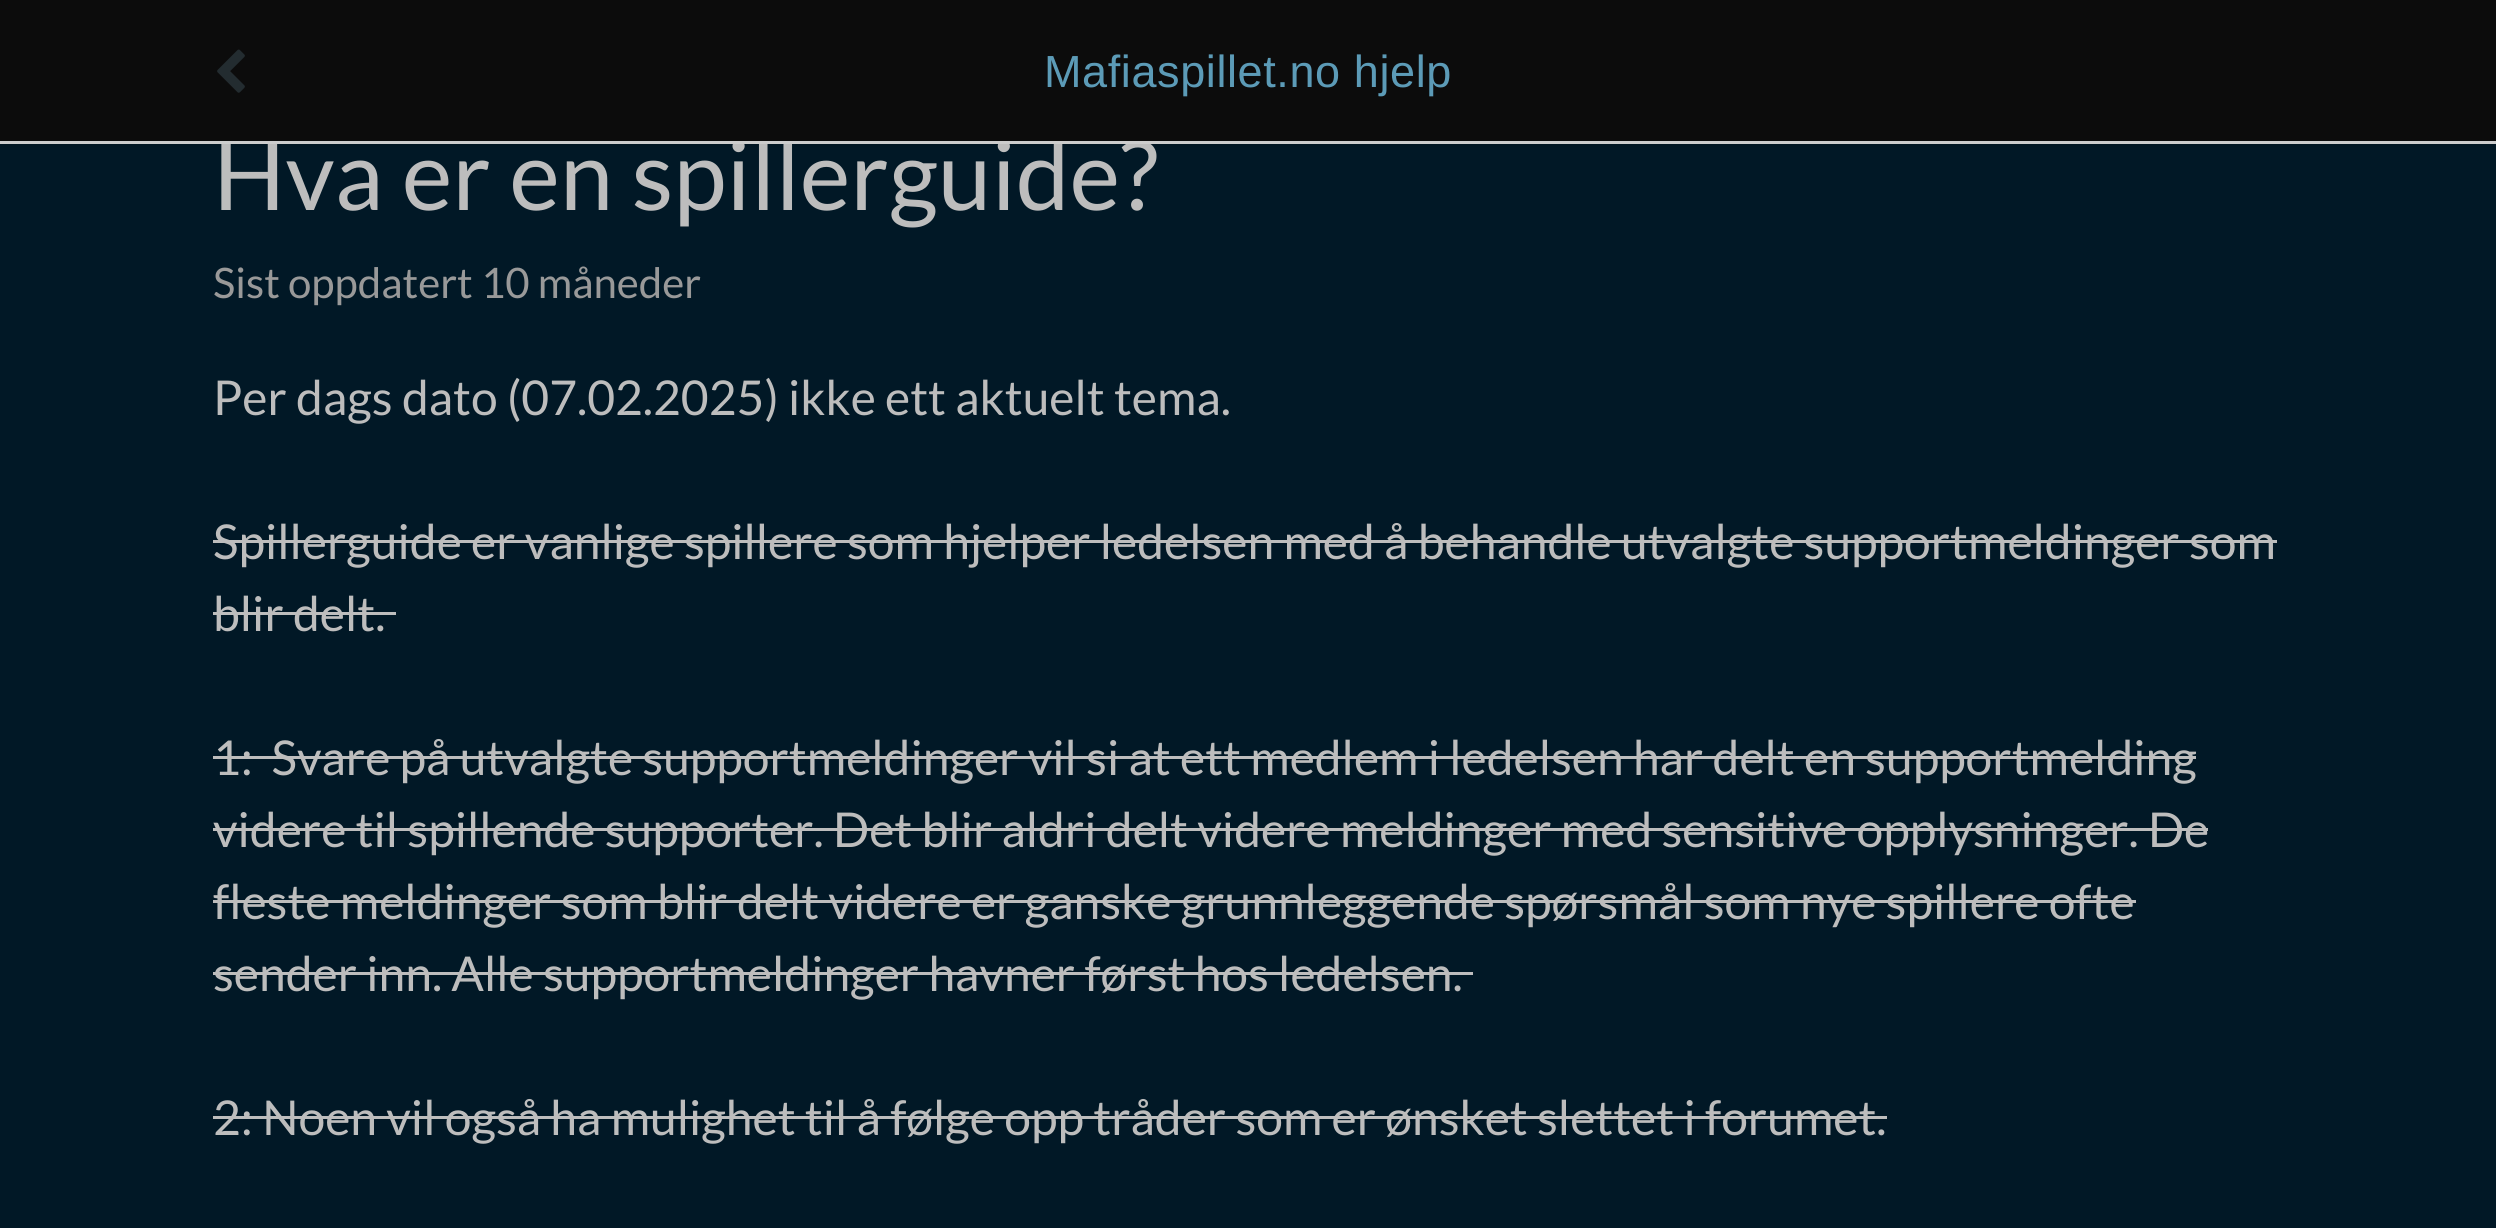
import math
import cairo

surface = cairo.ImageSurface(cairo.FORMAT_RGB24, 2496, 1228)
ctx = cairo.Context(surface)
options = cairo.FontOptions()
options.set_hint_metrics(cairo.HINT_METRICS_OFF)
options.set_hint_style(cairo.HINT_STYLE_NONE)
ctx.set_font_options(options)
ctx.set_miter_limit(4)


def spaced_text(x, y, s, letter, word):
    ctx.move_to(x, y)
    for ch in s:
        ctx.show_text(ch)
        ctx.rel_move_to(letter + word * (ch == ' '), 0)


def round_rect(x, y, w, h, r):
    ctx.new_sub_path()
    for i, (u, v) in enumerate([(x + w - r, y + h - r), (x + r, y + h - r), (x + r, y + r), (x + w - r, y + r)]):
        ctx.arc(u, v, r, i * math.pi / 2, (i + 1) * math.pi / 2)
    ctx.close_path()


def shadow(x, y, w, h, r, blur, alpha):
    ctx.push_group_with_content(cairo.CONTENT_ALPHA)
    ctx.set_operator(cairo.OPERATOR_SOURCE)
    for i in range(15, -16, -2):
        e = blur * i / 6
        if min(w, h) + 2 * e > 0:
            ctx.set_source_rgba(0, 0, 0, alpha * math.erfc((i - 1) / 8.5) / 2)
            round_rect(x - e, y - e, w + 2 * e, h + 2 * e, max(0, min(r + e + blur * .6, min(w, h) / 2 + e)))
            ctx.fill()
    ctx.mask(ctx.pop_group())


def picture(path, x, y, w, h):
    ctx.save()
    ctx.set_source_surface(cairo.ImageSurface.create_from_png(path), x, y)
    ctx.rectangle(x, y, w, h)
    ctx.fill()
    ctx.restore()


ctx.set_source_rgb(0.004, 0.094, 0.149)
ctx.paint()
ctx.set_source_rgb(0, 0, 0)
shadow(0, 3, 2496, 144, 0, 3, 0.12)
ctx.select_font_face("Lato")
ctx.set_font_size(96)
ctx.set_source_rgb(0.741, 0.741, 0.741)
ctx.move_to(213, 210)
ctx.show_text("Hva er en spillerguide?")
ctx.set_source_rgb(0.047, 0.047, 0.047)
ctx.rectangle(0, 0, 2496, 141)
ctx.fill()
ctx.set_source_rgb(0.8, 0.8, 0.8)
ctx.rectangle(0, 141, 2496, 3)
ctx.fill()
picture("img1.png", 217, 49, 28, 44)
ctx.select_font_face("Liberation Sans")
ctx.set_font_size(45)
ctx.set_source_rgb(0.361, 0.608, 0.718)
spaced_text(1044, 87, "Mafiaspillet.no hjelp", 0.6, 0)
ctx.select_font_face("Lato")
ctx.set_font_size(42)
ctx.set_source_rgb(0.6, 0.6, 0.6)
ctx.move_to(213, 298)
ctx.show_text("Sist oppdatert 10 måneder")
ctx.set_font_size(48)
ctx.set_source_rgb(0.741, 0.741, 0.741)
ctx.move_to(213, 415)
ctx.show_text("Per dags dato (07.02.2025) ikke ett aktuelt tema.")
ctx.move_to(213, 559)
ctx.show_text("Spillerguide er vanlige spillere som hjelper ledelsen med å behandle utvalgte supportmeldinger som")
ctx.rectangle(213, 540, 2064, 3)
ctx.fill()
ctx.move_to(213, 631)
ctx.show_text("blir delt.")
ctx.rectangle(213, 612, 183, 3)
ctx.fill()
ctx.move_to(213, 775)
ctx.show_text("1:  Svare på utvalgte supportmeldinger vil si at ett medlem i ledelsen har delt en supportmelding")
ctx.rectangle(213, 756, 1983, 3)
ctx.fill()
ctx.move_to(213, 847)
ctx.show_text("videre til spillende supporter. Det blir aldri delt videre meldinger med sensitive opplysninger. De")
ctx.rectangle(213, 828, 1995, 3)
ctx.fill()
ctx.move_to(213, 919)
ctx.show_text("fleste meldinger som blir delt videre er ganske grunnleggende spørsmål som nye spillere ofte")
ctx.rectangle(213, 900, 1923, 3)
ctx.fill()
ctx.move_to(213, 991)
ctx.show_text("sender inn. Alle supportmeldinger havner først hos ledelsen.")
ctx.rectangle(213, 972, 1260, 3)
ctx.fill()
ctx.move_to(213, 1135)
ctx.show_text("2: Noen vil også ha mulighet til å følge opp tråder som er ønsket slettet i forumet.")
ctx.rectangle(213, 1116, 1674, 3)
ctx.fill()
surface.write_to_png("page.png")
